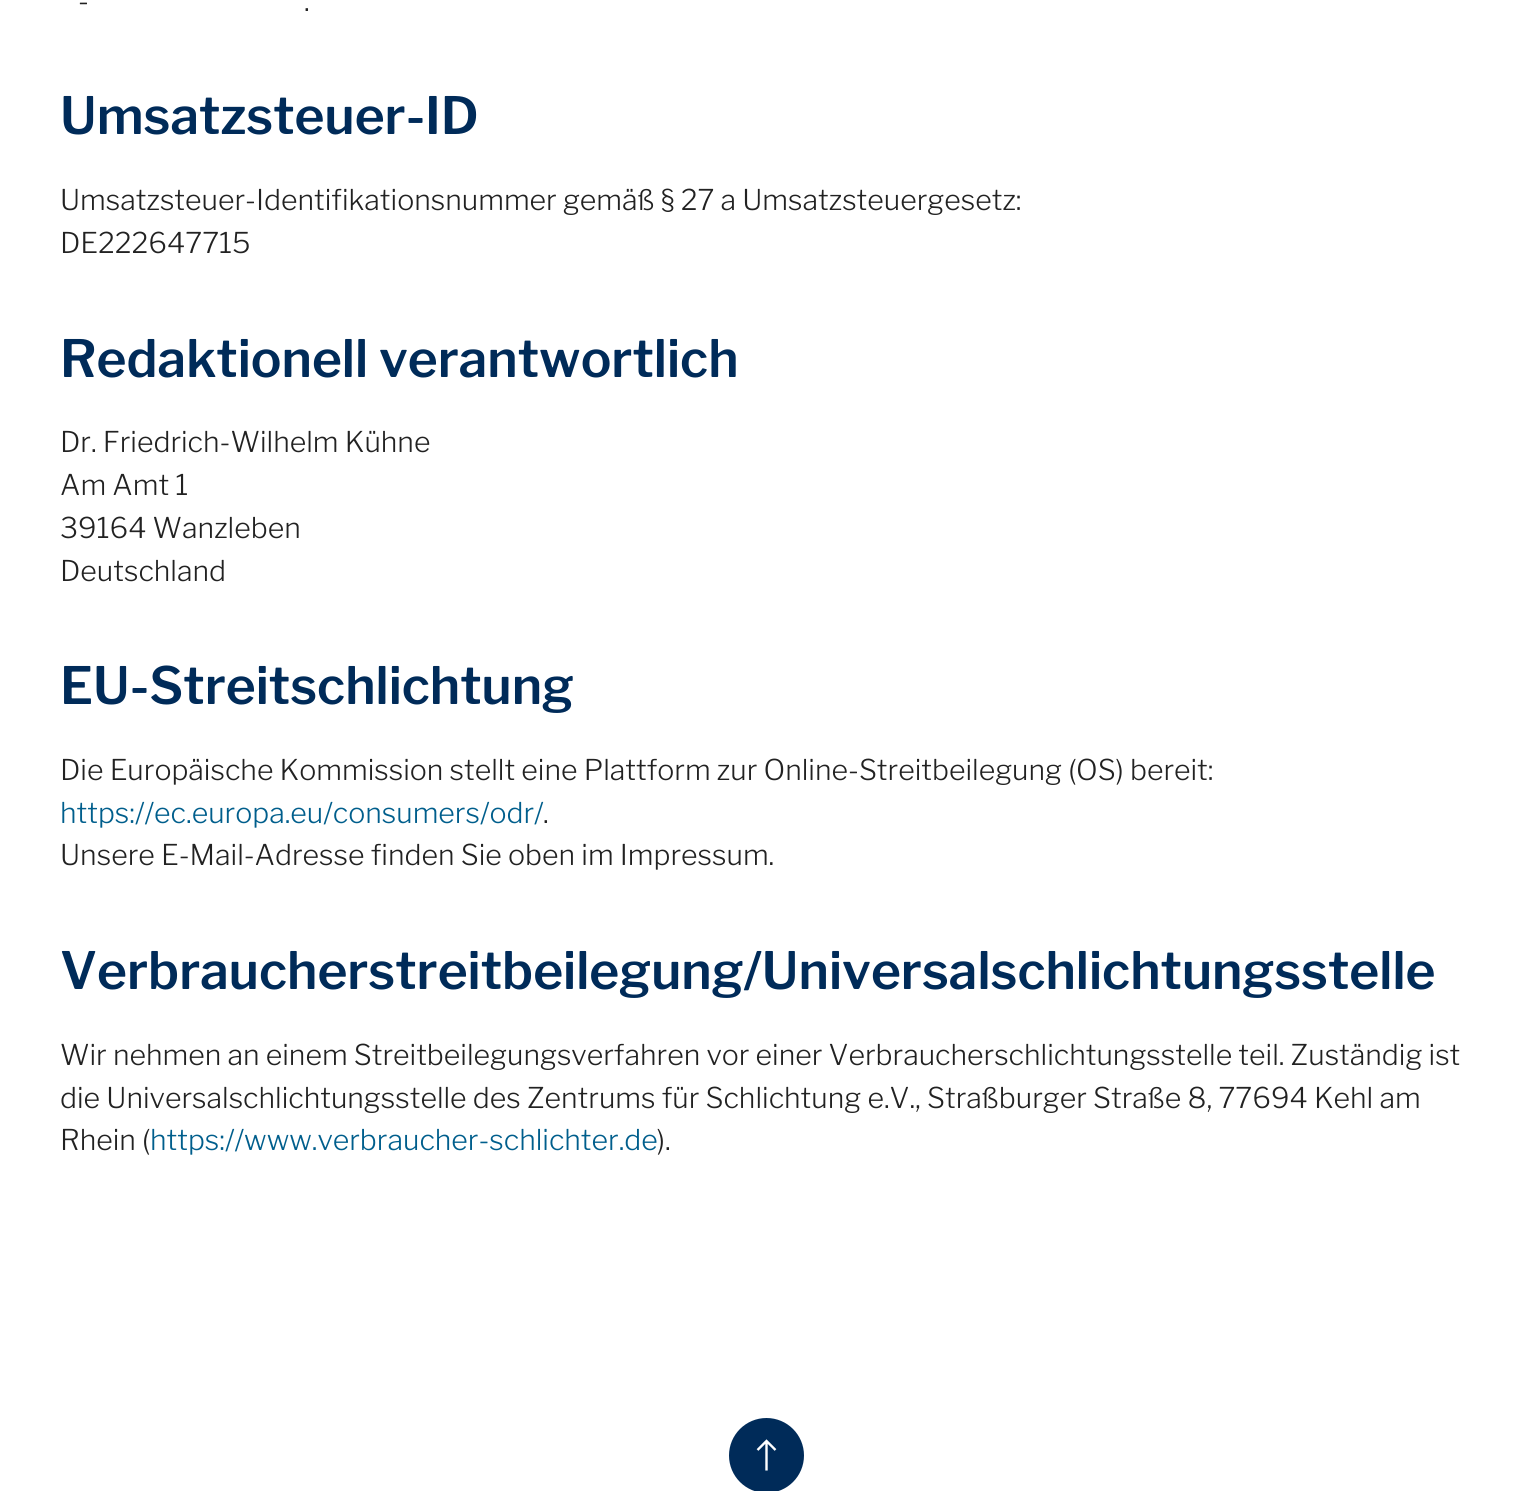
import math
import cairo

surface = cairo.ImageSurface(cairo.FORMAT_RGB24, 1533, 1491)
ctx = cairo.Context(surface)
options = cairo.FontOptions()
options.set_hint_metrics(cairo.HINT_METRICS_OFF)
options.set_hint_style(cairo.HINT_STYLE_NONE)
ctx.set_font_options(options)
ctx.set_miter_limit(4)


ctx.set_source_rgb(1, 1, 1)
ctx.paint()
ctx.select_font_face("Libre Franklin Thin")
ctx.set_font_size(28.5)
ctx.set_source_rgb(0.133, 0.133, 0.133)
ctx.move_to(78, 11)
ctx.show_text("-")
ctx.move_to(304, 11)
ctx.show_text(".")
ctx.select_font_face("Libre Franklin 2 Thin")
ctx.set_font_size(51.25)
ctx.set_source_rgb(0, 0.169, 0.349)
ctx.move_to(60, 134)
ctx.show_text("Umsatzsteuer-ID")
ctx.select_font_face("Libre Franklin Thin")
ctx.set_font_size(28.5)
ctx.set_source_rgb(0.133, 0.133, 0.133)
ctx.move_to(60, 210)
ctx.show_text("Umsatzsteuer-Identifikationsnummer gemäß § 27 a Umsatzsteuergesetz:")
ctx.move_to(60, 253)
ctx.show_text("DE222647715")
ctx.select_font_face("Libre Franklin 2 Thin")
ctx.set_font_size(51.25)
ctx.set_source_rgb(0, 0.169, 0.349)
ctx.move_to(60, 377)
ctx.show_text("Redaktionell verantwortlich")
ctx.select_font_face("Libre Franklin Thin")
ctx.set_font_size(28.5)
ctx.set_source_rgb(0.133, 0.133, 0.133)
ctx.move_to(60, 452)
ctx.show_text("Dr. Friedrich-Wilhelm Kühne")
ctx.move_to(60, 495)
ctx.show_text("Am Amt 1")
ctx.move_to(60, 538)
ctx.show_text("39164 Wanzleben")
ctx.move_to(60, 581)
ctx.show_text("Deutschland")
ctx.select_font_face("Libre Franklin 2 Thin")
ctx.set_font_size(51.25)
ctx.set_source_rgb(0, 0.169, 0.349)
ctx.move_to(60, 704)
ctx.show_text("EU-Streitschlichtung")
ctx.select_font_face("Libre Franklin Thin")
ctx.set_font_size(28.5)
ctx.set_source_rgb(0.133, 0.133, 0.133)
ctx.move_to(60, 780)
ctx.show_text("Die Europäische Kommission stellt eine Plattform zur Online-Streitbeilegung (OS) bereit:")
ctx.set_source_rgb(0, 0.369, 0.549)
ctx.move_to(60, 823)
ctx.show_text("https://ec.europa.eu/consumers/odr/")
ctx.set_source_rgb(0.133, 0.133, 0.133)
ctx.move_to(543, 823)
ctx.show_text(".")
ctx.move_to(60, 865)
ctx.show_text("Unsere E-Mail-Adresse finden Sie oben im Impressum.")
ctx.select_font_face("Libre Franklin 2 Thin")
ctx.set_font_size(51.25)
ctx.set_source_rgb(0, 0.169, 0.349)
ctx.move_to(60, 989)
ctx.show_text("Verbraucherstreitbeilegung/Universalschlichtungsstelle")
ctx.select_font_face("Libre Franklin Thin")
ctx.set_font_size(28.5)
ctx.set_source_rgb(0.133, 0.133, 0.133)
ctx.move_to(60, 1065)
ctx.show_text("Wir nehmen an einem Streitbeilegungsverfahren vor einer Verbraucherschlichtungsstelle teil. Zuständig ist")
ctx.move_to(60, 1108)
ctx.show_text("die Universalschlichtungsstelle des Zentrums für Schlichtung e.V., Straßburger Straße 8, 77694 Kehl am")
ctx.move_to(60, 1150)
ctx.show_text("Rhein (")
ctx.set_source_rgb(0, 0.369, 0.549)
ctx.move_to(150, 1150)
ctx.show_text("https://www.verbraucher-schlichter.de")
ctx.set_source_rgb(0.133, 0.133, 0.133)
ctx.move_to(657, 1150)
ctx.show_text(").")
ctx.set_source_rgb(0, 0.169, 0.349)
ctx.new_path()
ctx.arc(766.5, 1455.5, 36.5, 0, 2 * math.pi)
ctx.fill_preserve()
ctx.stroke()
ctx.new_path()
ctx.move_to(766.5, 1470.5)
ctx.line_to(766.5, 1442)
ctx.move_to(775.5, 1450)
ctx.line_to(766.5, 1441)
ctx.line_to(757.5, 1450)
ctx.set_source_rgb(1, 1, 1)
ctx.set_line_width(2.4)
ctx.stroke()
surface.write_to_png("page.png")
